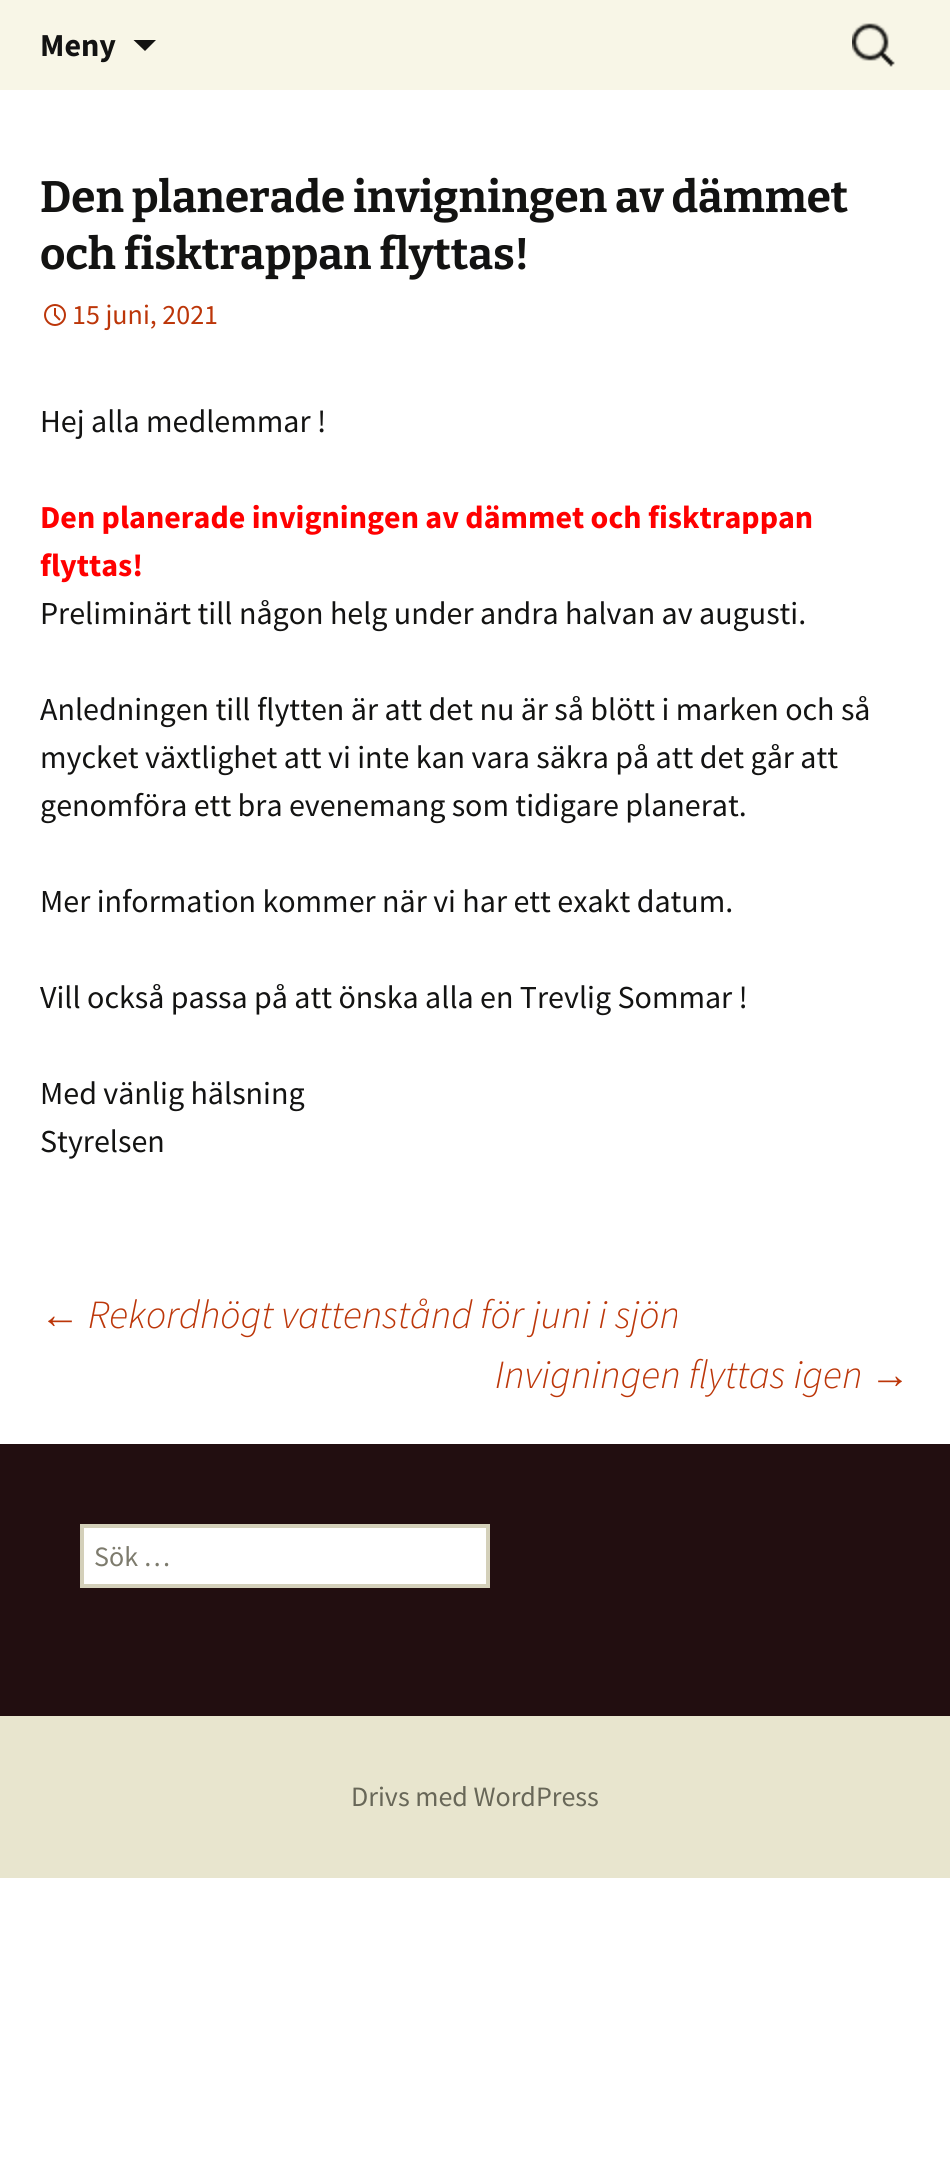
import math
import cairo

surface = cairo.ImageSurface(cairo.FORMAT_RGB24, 950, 2184)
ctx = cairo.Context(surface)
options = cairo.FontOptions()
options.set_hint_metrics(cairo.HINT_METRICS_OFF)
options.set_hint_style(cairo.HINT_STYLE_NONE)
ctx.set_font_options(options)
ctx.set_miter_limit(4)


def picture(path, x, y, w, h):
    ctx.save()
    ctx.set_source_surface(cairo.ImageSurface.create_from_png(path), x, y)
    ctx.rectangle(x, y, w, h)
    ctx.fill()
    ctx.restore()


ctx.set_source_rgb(1, 1, 1)
ctx.paint()
ctx.set_source_rgb(0.969, 0.961, 0.906)
ctx.rectangle(0, 0, 950, 90)
ctx.fill()
ctx.select_font_face("Source Sans Pro", cairo.FONT_SLANT_NORMAL, cairo.FONT_WEIGHT_BOLD)
ctx.set_font_size(32)
ctx.set_source_rgb(0.078, 0.078, 0.071)
ctx.move_to(40, 56)
ctx.show_text("Meny")
ctx.new_path()
ctx.move_to(133.5, 40)
ctx.line_to(145, 51)
ctx.line_to(156, 40)
ctx.close_path()
ctx.fill()
picture("img1.png", 852, 23, 43, 44)
ctx.select_font_face("Bitter Thin")
ctx.set_font_size(44)
ctx.move_to(40, 212)
ctx.show_text("Den planerade invigningen av dämmet")
ctx.move_to(40, 269)
ctx.show_text("och fisktrappan flyttas!")
picture("img2.png", 44, 304, 22, 22)
ctx.select_font_face("Source Sans Pro")
ctx.set_font_size(28)
ctx.set_source_rgb(0.737, 0.212, 0.039)
ctx.move_to(72, 324)
ctx.show_text("15 juni, 2021")
ctx.set_font_size(32)
ctx.set_source_rgb(0.078, 0.078, 0.071)
ctx.move_to(40, 432)
ctx.show_text("Hej alla medlemmar !")
ctx.select_font_face("Source Sans Pro", cairo.FONT_SLANT_NORMAL, cairo.FONT_WEIGHT_BOLD)
ctx.set_source_rgb(1, 0, 0)
ctx.move_to(40, 528)
ctx.show_text("Den planerade invigningen av dämmet och fisktrappan")
ctx.move_to(40, 576)
ctx.show_text("flyttas!")
ctx.select_font_face("Source Sans Pro")
ctx.set_source_rgb(0.078, 0.078, 0.071)
ctx.move_to(40, 624)
ctx.show_text("Preliminärt till någon helg under andra halvan av augusti.")
ctx.move_to(40, 720)
ctx.show_text("Anledningen till flytten är att det nu är så blött i marken och så")
ctx.move_to(40, 768)
ctx.show_text("mycket växtlighet att vi inte kan vara säkra på att det går att")
ctx.move_to(40, 816)
ctx.show_text("genomföra ett bra evenemang som tidigare planerat.")
ctx.move_to(40, 912)
ctx.show_text("Mer information kommer när vi har ett exakt datum.")
ctx.move_to(40, 1008)
ctx.show_text("Vill också passa på att önska alla en Trevlig Sommar !")
ctx.move_to(40, 1104)
ctx.show_text("Med vänlig hälsning")
ctx.move_to(40, 1152)
ctx.show_text("Styrelsen")
ctx.select_font_face("Liberation Sans", cairo.FONT_SLANT_ITALIC)
ctx.set_font_size(40)
ctx.set_source_rgb(0.737, 0.212, 0.039)
ctx.move_to(40, 1328)
ctx.show_text("←")
ctx.select_font_face("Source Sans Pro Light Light", cairo.FONT_SLANT_ITALIC)
ctx.move_to(88, 1328)
ctx.show_text("Rekordhögt vattenstånd för juni i sjön")
ctx.move_to(495, 1388)
ctx.show_text("Invigningen flyttas igen")
ctx.select_font_face("Liberation Sans", cairo.FONT_SLANT_ITALIC)
ctx.move_to(870, 1388)
ctx.show_text("→")
ctx.set_source_rgb(0.91, 0.898, 0.808)
ctx.rectangle(0, 1716, 950, 162)
ctx.fill()
ctx.set_source_rgb(0.133, 0.055, 0.063)
ctx.rectangle(0, 1444, 950, 272)
ctx.fill()
ctx.set_source_rgb(1, 1, 1)
ctx.rectangle(82, 1526, 406, 60)
ctx.fill_preserve()
ctx.set_source_rgb(0.831, 0.816, 0.729)
ctx.set_line_width(4)
ctx.stroke()
ctx.select_font_face("Source Sans Pro")
ctx.set_font_size(28)
ctx.set_source_rgb(0.49, 0.482, 0.427)
ctx.move_to(94, 1566)
ctx.show_text("Sök …")
ctx.set_source_rgb(0.408, 0.404, 0.345)
ctx.move_to(351, 1806)
ctx.show_text("Drivs med WordPress")
surface.write_to_png("page.png")
